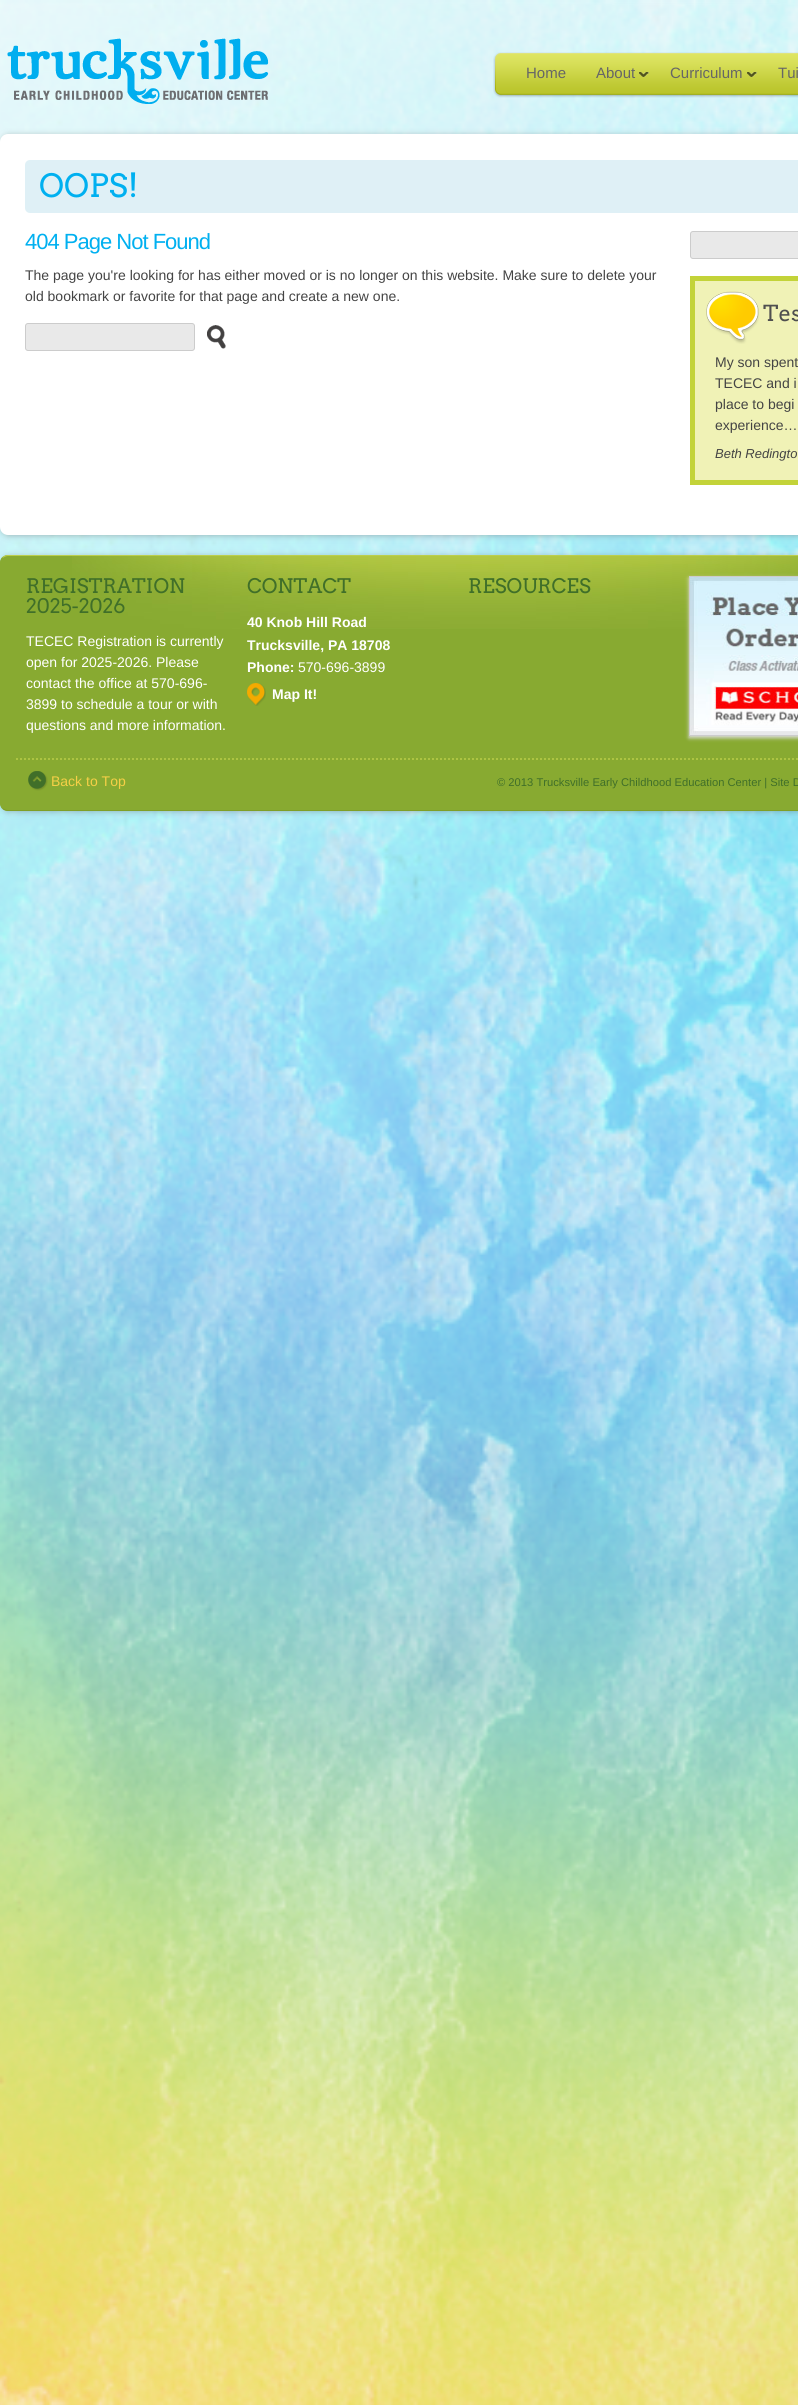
import math
import cairo

surface = cairo.ImageSurface(cairo.FORMAT_RGB24, 798, 2405)
ctx = cairo.Context(surface)
options = cairo.FontOptions()
options.set_hint_metrics(cairo.HINT_METRICS_OFF)
options.set_hint_style(cairo.HINT_STYLE_NONE)
ctx.set_font_options(options)
ctx.set_miter_limit(4)


def spaced_text(x, y, s, letter, word):
    ctx.move_to(x, y)
    for ch in s:
        ctx.show_text(ch)
        ctx.rel_move_to(letter + word * (ch == ' '), 0)


def round_rect(x, y, w, h, r):
    ctx.new_sub_path()
    for i, (u, v) in enumerate([(x + w - r, y + h - r), (x + r, y + h - r), (x + r, y + r), (x + w - r, y + r)]):
        ctx.arc(u, v, r, i * math.pi / 2, (i + 1) * math.pi / 2)
    ctx.close_path()


def shadow(x, y, w, h, r, blur, alpha):
    ctx.push_group_with_content(cairo.CONTENT_ALPHA)
    ctx.set_operator(cairo.OPERATOR_SOURCE)
    for i in range(15, -16, -2):
        e = blur * i / 6
        if min(w, h) + 2 * e > 0:
            ctx.set_source_rgba(0, 0, 0, alpha * math.erfc((i - 1) / 8.5) / 2)
            round_rect(x - e, y - e, w + 2 * e, h + 2 * e, max(0, min(r + e + blur * .6, min(w, h) / 2 + e)))
            ctx.fill()
    ctx.mask(ctx.pop_group())


def picture(path, x, y, w, h):
    ctx.save()
    ctx.set_source_surface(cairo.ImageSurface.create_from_png(path), x, y)
    ctx.rectangle(x, y, w, h)
    ctx.fill()
    ctx.restore()


ctx.set_source_rgb(1, 1, 1)
ctx.paint()
picture("img1.png", 0, 0, 798, 2405)
picture("img2.png", 7, 38, 262, 66)
picture("img3.png", 493, 52, 18, 46)
picture("img4.png", 511, 52, 287, 46)
ctx.select_font_face("Liberation Sans")
ctx.set_font_size(15)
ctx.set_source_rgb(0.4, 0.4, 0.4)
ctx.move_to(526, 78)
ctx.show_text("Home")
ctx.move_to(596, 78)
ctx.show_text("About")
picture("img5.png", 639, 72, 10, 5)
ctx.move_to(670, 78)
ctx.show_text("Curriculum")
picture("img5.png", 747, 72, 10, 5)
ctx.move_to(778, 78)
ctx.show_text("Tui")
ctx.set_source_rgb(0.4, 0.4, 0.4)
shadow(1, 135, 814, 401, 8, 3, 0.4)
ctx.set_source_rgb(1, 1, 1)
round_rect(0, 134, 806, 401, 8)
ctx.fill()
ctx.set_source_rgb(0.875, 0.941, 0.961)
round_rect(25, 160, 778, 53, 5)
ctx.fill()
ctx.select_font_face("Arvo")
ctx.set_font_size(32)
ctx.set_source_rgb(0, 0.69, 0.941)
ctx.move_to(39, 197)
ctx.show_text("OOPS!")
ctx.select_font_face("Liberation Sans")
ctx.set_font_size(22)
spaced_text(25, 249, "404 Page Not Found", -1, 0)
ctx.set_font_size(14)
ctx.set_source_rgb(0.267, 0.267, 0.267)
ctx.move_to(25, 280)
ctx.show_text("The page you're looking for has either moved or is no longer on this website. Make sure to delete your")
ctx.move_to(25, 301)
ctx.show_text("old bookmark or favorite for that page and create a new one.")
ctx.set_source_rgb(0.914, 0.914, 0.914)
round_rect(25.5, 323.5, 169, 27, 2.5)
ctx.fill_preserve()
ctx.set_source_rgb(0.8, 0.8, 0.8)
ctx.set_line_width(1)
ctx.stroke()
picture("img6.png", 207, 325, 19, 24)
ctx.set_source_rgb(0.914, 0.914, 0.914)
round_rect(690.5, 231.5, 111, 27, 2.5)
ctx.fill_preserve()
ctx.set_source_rgb(0.8, 0.8, 0.8)
ctx.stroke()
ctx.set_source_rgb(0.941, 0.949, 0.714)
ctx.rectangle(695, 281, 103, 199)
ctx.fill()
picture("img7.png", 706, 291, 53, 53)
ctx.new_path()
ctx.move_to(692.5, 278.5)
ctx.line_to(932.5, 278.5)
ctx.line_to(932.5, 482.5)
ctx.line_to(692.5, 482.5)
ctx.close_path()
ctx.set_source_rgb(0.765, 0.827, 0.224)
ctx.set_line_width(5)
ctx.stroke()
ctx.select_font_face("Arvo")
ctx.set_font_size(22)
ctx.set_source_rgb(0.31, 0.31, 0.31)
ctx.move_to(763, 321)
ctx.show_text("Tes")
ctx.select_font_face("Liberation Sans")
ctx.set_font_size(14)
ctx.set_source_rgb(0.267, 0.267, 0.267)
ctx.move_to(715, 367)
ctx.show_text("My son spent")
ctx.move_to(715, 388)
ctx.show_text("TECEC and i")
ctx.move_to(715, 409)
ctx.show_text("place to begi")
ctx.move_to(715, 430)
ctx.show_text("experience…")
ctx.select_font_face("Liberation Sans", cairo.FONT_SLANT_ITALIC)
ctx.set_font_size(13)
ctx.move_to(715, 458)
ctx.show_text("Beth Redingto")
ctx.set_source_rgb(0.4, 0.4, 0.4)
shadow(1, 556, 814, 256, 8, 3, 0.4)
ctx.set_source_rgb(0.533, 0.667, 0.192)
round_rect(0, 555, 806, 256, 8)
ctx.fill()
picture("img8.png", 72, 556, 726, 73)
ctx.new_path()
ctx.move_to(2.5, 557.5)
ctx.curve_to(4, 556.5, 6, 555.5, 8, 555.5)
ctx.line_to(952, 555.5)
ctx.curve_to(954, 555.5, 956, 556.5, 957.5, 557.5)
ctx.set_source_rgb(0.737, 0.812, 0.302)
ctx.set_line_width(1)
ctx.stroke()
ctx.new_path()
ctx.move_to(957.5, 808.5)
ctx.curve_to(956, 809.5, 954, 810.5, 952, 810.5)
ctx.line_to(8, 810.5)
ctx.curve_to(6, 810.5, 4, 809.5, 2.5, 808.5)
ctx.set_source_rgb(0.498, 0.624, 0.153)
ctx.stroke()
ctx.new_path()
ctx.move_to(2.5, 808.5)
ctx.curve_to(1.5, 807, 0.5, 805, 0.5, 803)
ctx.line_to(0.5, 563)
ctx.curve_to(0.5, 561, 1.5, 559, 2.5, 557.5)
ctx.set_source_rgb(0.533, 0.667, 0.192)
ctx.stroke()
ctx.select_font_face("Arvo")
ctx.set_font_size(20)
ctx.set_source_rgb(0.251, 0.435, 0.161)
ctx.move_to(26, 593)
ctx.show_text("REGISTRATION")
ctx.move_to(26, 613)
ctx.show_text("2025-2026")
ctx.select_font_face("Liberation Sans")
ctx.set_font_size(14)
ctx.set_source_rgb(1, 1, 1)
ctx.move_to(26, 646)
ctx.show_text("TECEC Registration is currently")
ctx.move_to(26, 667)
ctx.show_text("open for 2025-2026. Please")
ctx.move_to(26, 688)
ctx.show_text("contact the office at 570-696-")
ctx.move_to(26, 709)
ctx.show_text("3899 to schedule a tour or with")
ctx.move_to(26, 730)
ctx.show_text("questions and more information.")
ctx.select_font_face("Arvo")
ctx.set_font_size(20)
ctx.set_source_rgb(0.251, 0.435, 0.161)
ctx.move_to(247, 593)
ctx.show_text("CONTACT")
ctx.select_font_face("Liberation Sans", cairo.FONT_SLANT_NORMAL, cairo.FONT_WEIGHT_BOLD)
ctx.set_font_size(14)
ctx.set_source_rgb(1, 1, 1)
ctx.move_to(247, 627)
ctx.show_text("40 Knob Hill Road")
ctx.move_to(247, 650)
ctx.show_text("Trucksville, PA 18708")
ctx.move_to(247, 672)
ctx.show_text("Phone:")
ctx.select_font_face("Liberation Sans")
ctx.move_to(298, 672)
ctx.show_text("570-696-3899")
picture("img9.png", 247, 683, 19, 23)
ctx.select_font_face("Liberation Sans", cairo.FONT_SLANT_NORMAL, cairo.FONT_WEIGHT_BOLD)
ctx.move_to(272, 699)
ctx.show_text("Map It!")
ctx.select_font_face("Arvo")
ctx.set_font_size(20)
ctx.set_source_rgb(0.251, 0.435, 0.161)
ctx.move_to(468, 593)
ctx.show_text("RESOURCES")
ctx.set_source_rgb(0.867, 0.867, 0.867)
shadow(689, 578, 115, 160, 0, 2, 1)
ctx.rectangle(689.5, 576.5, 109, 159)
ctx.set_source_rgb(0.8, 0.8, 0.8)
ctx.stroke()
picture("img10.png", 690, 577, 108, 158)
ctx.new_path()
ctx.move_to(16, 759)
ctx.line_to(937, 759)
ctx.set_source_rgb(0.678, 0.769, 0.259)
ctx.set_line_width(2)
ctx.set_dash([2, 2])
ctx.stroke()
picture("img11.png", 28, 771, 20, 20)
ctx.select_font_face("Liberation Sans")
ctx.set_font_size(14)
ctx.set_source_rgb(0.961, 0.812, 0.278)
ctx.move_to(51, 786)
ctx.show_text("Back to Top")
ctx.set_font_size(11.2)
ctx.set_source_rgb(0.251, 0.435, 0.161)
ctx.move_to(497, 786)
ctx.show_text("© 2013 Trucksville Early Childhood Education Center | Site D")
surface.write_to_png("page.png")
